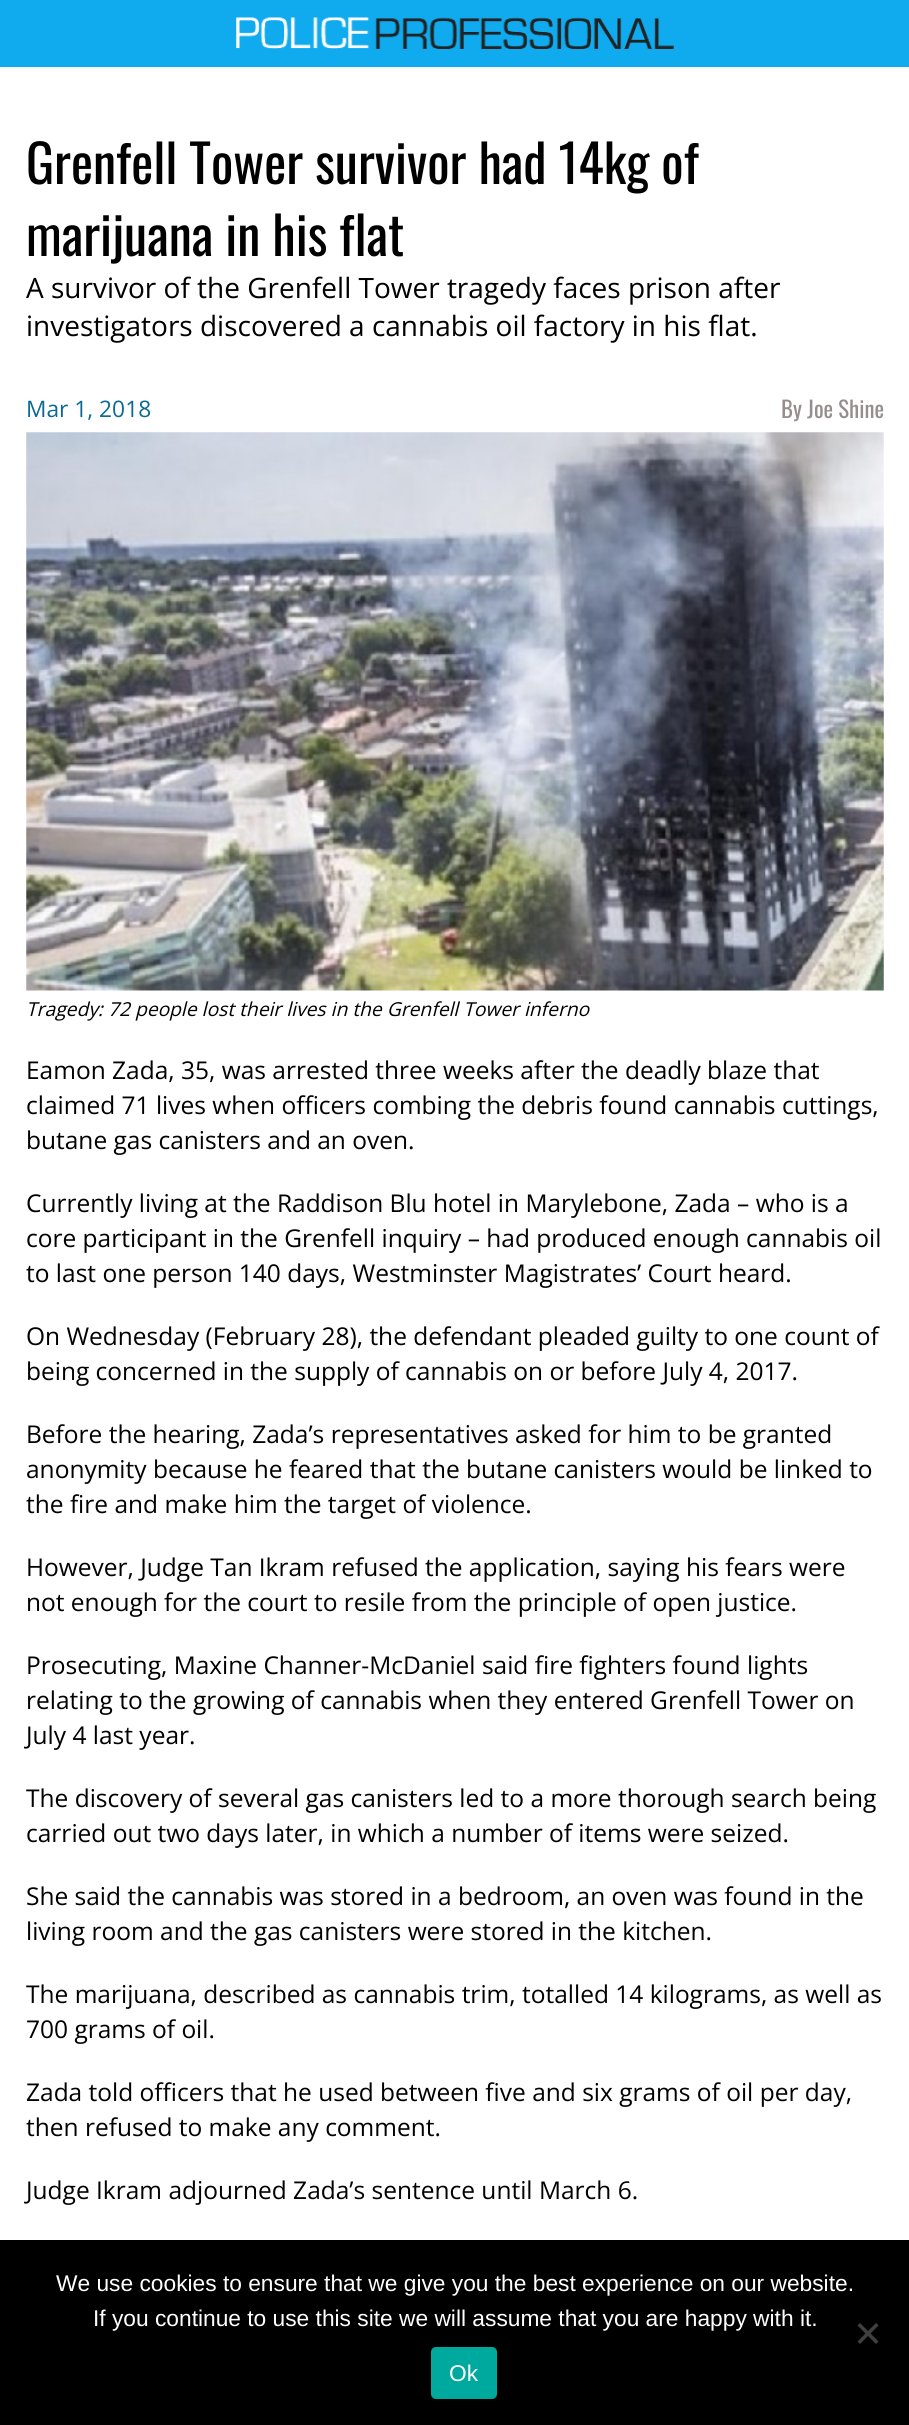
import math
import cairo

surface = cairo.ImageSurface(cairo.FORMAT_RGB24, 909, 2425)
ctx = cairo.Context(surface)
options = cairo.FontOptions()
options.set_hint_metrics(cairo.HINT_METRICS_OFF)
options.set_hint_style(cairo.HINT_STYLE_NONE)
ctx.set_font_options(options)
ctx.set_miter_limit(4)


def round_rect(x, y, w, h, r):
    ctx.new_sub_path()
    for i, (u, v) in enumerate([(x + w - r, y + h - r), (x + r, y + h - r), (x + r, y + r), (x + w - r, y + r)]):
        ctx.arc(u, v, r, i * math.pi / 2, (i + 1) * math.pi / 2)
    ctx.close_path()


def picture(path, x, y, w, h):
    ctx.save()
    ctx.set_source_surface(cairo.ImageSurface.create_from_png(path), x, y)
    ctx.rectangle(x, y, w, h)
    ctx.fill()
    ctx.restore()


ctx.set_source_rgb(1, 1, 1)
ctx.paint()
ctx.set_source_rgb(0.063, 0.671, 0.937)
ctx.rectangle(0, 0, 909, 67)
ctx.fill()
picture("img1.png", 236, 17, 438, 32)
ctx.select_font_face("Oswald")
ctx.set_font_size(52.5)
ctx.set_source_rgb(0, 0, 0)
ctx.move_to(26, 184)
ctx.show_text("Grenfell Tower survivor had 14kg of")
ctx.move_to(26, 256)
ctx.show_text("marijuana in his flat")
ctx.select_font_face("Open Sans")
ctx.set_font_size(28)
ctx.move_to(26, 298)
ctx.show_text("A survivor of the Grenfell Tower tragedy faces prison after")
ctx.move_to(26, 336)
ctx.show_text("investigators discovered a cannabis oil factory in his flat.")
ctx.set_font_size(22.75)
ctx.set_source_rgb(0.039, 0.416, 0.58)
ctx.move_to(26, 417)
ctx.show_text("Mar 1, 2018")
ctx.select_font_face("Oswald")
ctx.set_source_rgb(0.588, 0.557, 0.557)
ctx.move_to(781, 418)
ctx.show_text("By Joe Shine")
picture("img2.png", 26, 432, 858, 559)
ctx.select_font_face("Open Sans", cairo.FONT_SLANT_ITALIC)
ctx.set_font_size(19.25)
ctx.set_source_rgb(0, 0, 0)
ctx.move_to(26, 1016)
ctx.show_text("Tragedy: 72 people lost their lives in the Grenfell Tower inferno")
ctx.select_font_face("Open Sans")
ctx.set_font_size(24.5)
ctx.move_to(26, 1079)
ctx.show_text("Eamon Zada, 35, was arrested three weeks after the deadly blaze that")
ctx.move_to(26, 1114)
ctx.show_text("claimed 71 lives when officers combing the debris found cannabis cuttings,")
ctx.move_to(26, 1149)
ctx.show_text("butane gas canisters and an oven.")
ctx.move_to(26, 1212)
ctx.show_text("Currently living at the Raddison Blu hotel in Marylebone, Zada – who is a")
ctx.move_to(26, 1247)
ctx.show_text("core participant in the Grenfell inquiry – had produced enough cannabis oil")
ctx.move_to(26, 1282)
ctx.show_text("to last one person 140 days, Westminster Magistrates’ Court heard.")
ctx.move_to(26, 1345)
ctx.show_text("On Wednesday (February 28), the defendant pleaded guilty to one count of")
ctx.move_to(26, 1380)
ctx.show_text("being concerned in the supply of cannabis on or before July 4, 2017.")
ctx.move_to(26, 1443)
ctx.show_text("Before the hearing, Zada’s representatives asked for him to be granted")
ctx.move_to(26, 1478)
ctx.show_text("anonymity because he feared that the butane canisters would be linked to")
ctx.move_to(26, 1513)
ctx.show_text("the fire and make him the target of violence.")
ctx.move_to(26, 1576)
ctx.show_text("However, Judge Tan Ikram refused the application, saying his fears were")
ctx.move_to(26, 1611)
ctx.show_text("not enough for the court to resile from the principle of open justice.")
ctx.move_to(26, 1674)
ctx.show_text("Prosecuting, Maxine Channer-McDaniel said fire fighters found lights")
ctx.move_to(26, 1709)
ctx.show_text("relating to the growing of cannabis when they entered Grenfell Tower on")
ctx.move_to(26, 1744)
ctx.show_text("July 4 last year.")
ctx.move_to(26, 1807)
ctx.show_text("The discovery of several gas canisters led to a more thorough search being")
ctx.move_to(26, 1842)
ctx.show_text("carried out two days later, in which a number of items were seized.")
ctx.move_to(26, 1905)
ctx.show_text("She said the cannabis was stored in a bedroom, an oven was found in the")
ctx.move_to(26, 1940)
ctx.show_text("living room and the gas canisters were stored in the kitchen.")
ctx.move_to(26, 2003)
ctx.show_text("The marijuana, described as cannabis trim, totalled 14 kilograms, as well as")
ctx.move_to(26, 2038)
ctx.show_text("700 grams of oil.")
ctx.move_to(26, 2101)
ctx.show_text("Zada told officers that he used between five and six grams of oil per day,")
ctx.move_to(26, 2136)
ctx.show_text("then refused to make any comment.")
ctx.move_to(26, 2199)
ctx.show_text("Judge Ikram adjourned Zada’s sentence until March 6.")
ctx.rectangle(0, 2240, 909, 185)
ctx.fill()
ctx.select_font_face("Liberation Sans")
ctx.set_font_size(22.75)
ctx.set_source_rgb(1, 1, 1)
ctx.move_to(56, 2291)
ctx.show_text("We use cookies to ensure that we give you the best experience on our website.")
ctx.move_to(93, 2326)
ctx.show_text("If you continue to use this site we will assume that you are happy with it.")
ctx.set_source_rgb(0.251, 0.251, 0.251)
ctx.new_path()
ctx.move_to(876, 2323)
ctx.line_to(878.5, 2325.5)
ctx.line_to(860, 2344)
ctx.line_to(857.5, 2341.5)
ctx.close_path()
ctx.fill()
ctx.new_path()
ctx.move_to(857.5, 2325.5)
ctx.line_to(860, 2323)
ctx.line_to(878.5, 2341.5)
ctx.line_to(876, 2344)
ctx.close_path()
ctx.fill()
ctx.set_source_rgb(0, 0.663, 0.616)
round_rect(431, 2347, 66, 52, 5)
ctx.fill()
ctx.set_source_rgb(1, 1, 1)
ctx.move_to(449, 2381)
ctx.show_text("Ok")
surface.write_to_png("page.png")
